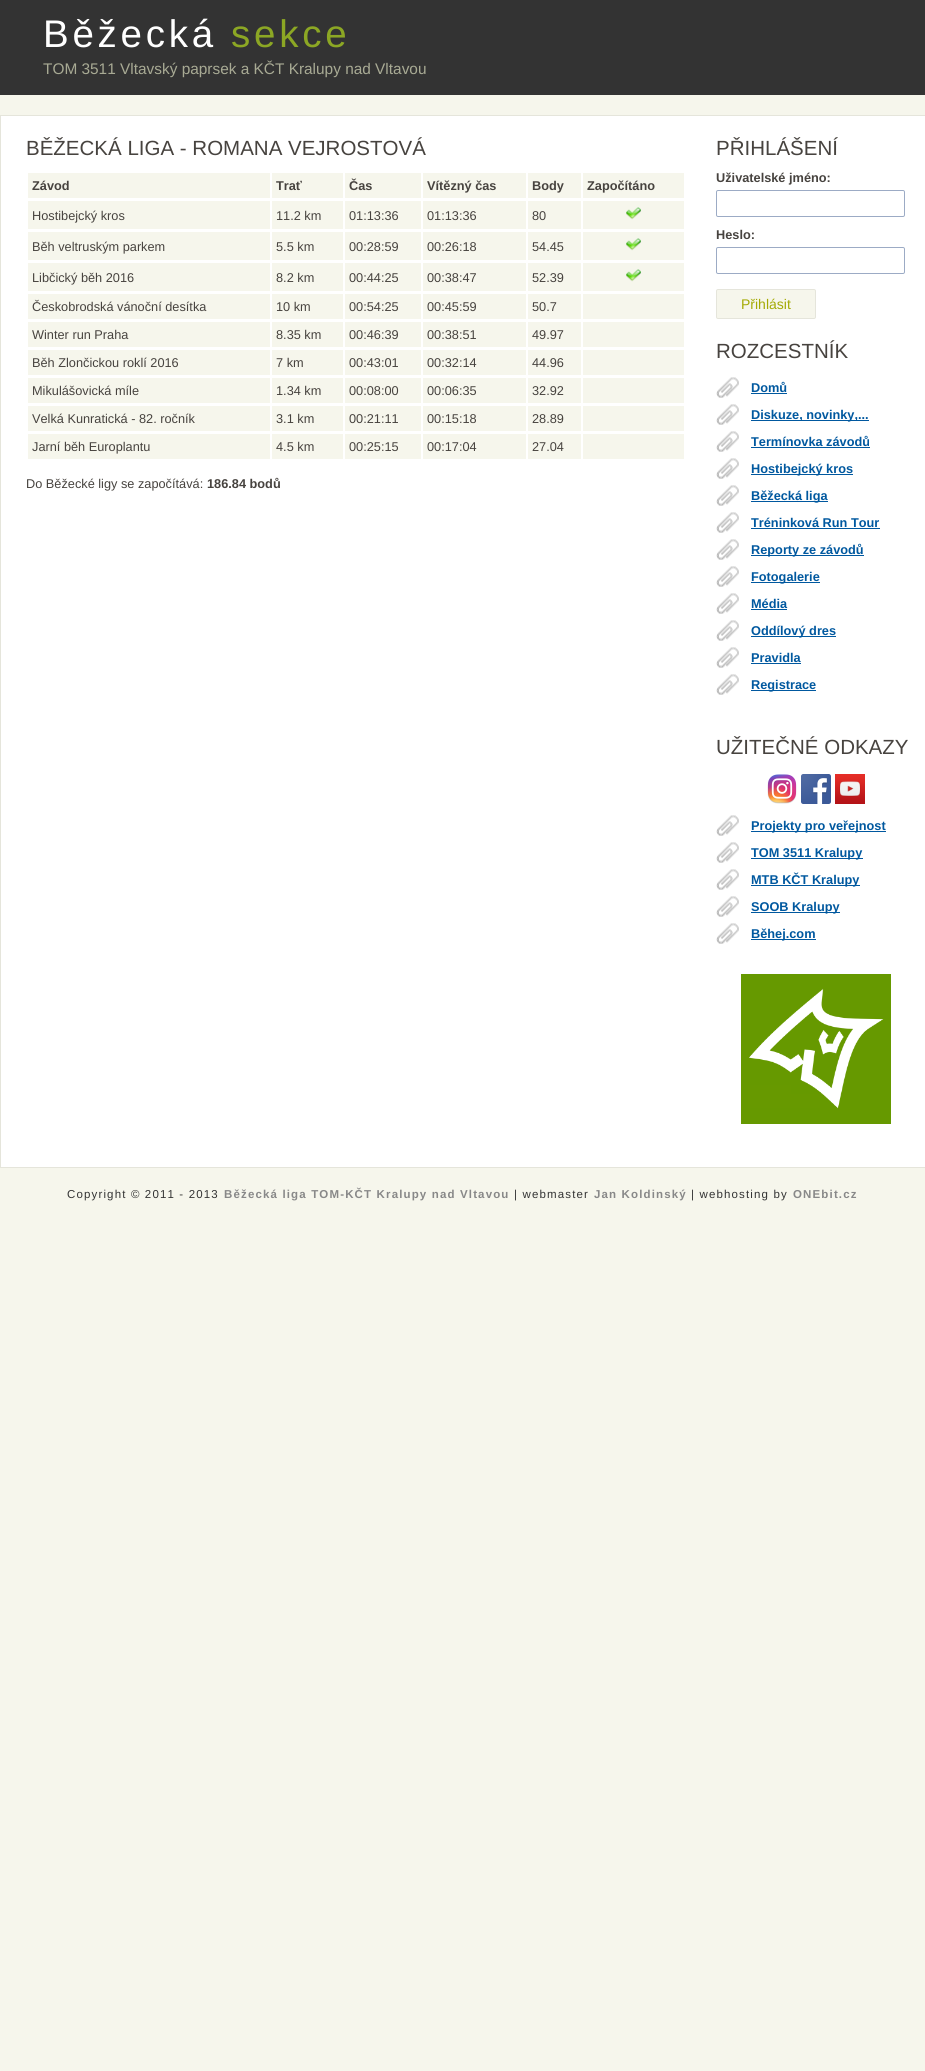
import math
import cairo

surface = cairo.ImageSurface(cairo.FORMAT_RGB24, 925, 2071)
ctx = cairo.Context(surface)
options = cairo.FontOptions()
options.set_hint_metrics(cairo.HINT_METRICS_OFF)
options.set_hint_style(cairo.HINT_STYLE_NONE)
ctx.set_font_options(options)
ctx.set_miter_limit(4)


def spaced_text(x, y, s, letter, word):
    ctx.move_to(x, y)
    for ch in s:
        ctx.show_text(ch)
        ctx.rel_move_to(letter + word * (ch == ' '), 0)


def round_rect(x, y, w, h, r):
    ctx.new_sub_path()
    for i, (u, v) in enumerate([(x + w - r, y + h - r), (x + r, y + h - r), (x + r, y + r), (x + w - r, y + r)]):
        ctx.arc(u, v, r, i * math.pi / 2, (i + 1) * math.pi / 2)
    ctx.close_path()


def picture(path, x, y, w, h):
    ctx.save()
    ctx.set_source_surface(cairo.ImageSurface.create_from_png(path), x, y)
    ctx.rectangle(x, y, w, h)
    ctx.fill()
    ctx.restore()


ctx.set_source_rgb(0.961, 0.961, 0.925)
ctx.paint()
ctx.set_source_rgb(0.2, 0.2, 0.2)
ctx.rectangle(0, 0, 925, 95)
ctx.fill()
ctx.select_font_face("Liberation Sans")
ctx.set_font_size(38.5)
ctx.set_source_rgb(1, 1, 1)
spaced_text(43, 47, "Běžecká", 3.75, 0)
ctx.set_source_rgb(0.549, 0.655, 0.141)
spaced_text(231, 47, "sekce", 3.75, 0)
ctx.set_font_size(15.4)
ctx.set_source_rgb(0.659, 0.667, 0.58)
ctx.move_to(43, 74)
ctx.show_text("TOM 3511 Vltavský paprsek a KČT Kralupy nad Vltavou")
ctx.set_source_rgb(1, 1, 1)
ctx.rectangle(0.5, 115.5, 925, 1052)
ctx.fill_preserve()
ctx.set_source_rgb(0.898, 0.898, 0.859)
ctx.set_line_width(1)
ctx.stroke()
ctx.set_font_size(20.5)
ctx.set_source_rgb(0.278, 0.263, 0.247)
ctx.move_to(26, 155)
ctx.show_text("BĚŽECKÁ LIGA - ROMANA VEJROSTOVÁ")
ctx.set_source_rgb(0.961, 0.961, 0.925)
ctx.rectangle(28, 173, 242, 25)
ctx.fill()
ctx.select_font_face("Liberation Sans", cairo.FONT_SLANT_NORMAL, cairo.FONT_WEIGHT_BOLD)
ctx.set_font_size(12.75)
ctx.set_source_rgb(0.278, 0.263, 0.247)
ctx.move_to(32, 190)
ctx.show_text("Závod")
ctx.set_source_rgb(0.961, 0.961, 0.925)
ctx.rectangle(272, 173, 71, 25)
ctx.fill()
ctx.set_source_rgb(0.278, 0.263, 0.247)
ctx.move_to(276, 190)
ctx.show_text("Trať")
ctx.set_source_rgb(0.961, 0.961, 0.925)
ctx.rectangle(345, 173, 76, 25)
ctx.fill()
ctx.set_source_rgb(0.278, 0.263, 0.247)
ctx.move_to(349, 190)
ctx.show_text("Čas")
ctx.set_source_rgb(0.961, 0.961, 0.925)
ctx.rectangle(423, 173, 103, 25)
ctx.fill()
ctx.set_source_rgb(0.278, 0.263, 0.247)
ctx.move_to(427, 190)
ctx.show_text("Vítězný čas")
ctx.set_source_rgb(0.961, 0.961, 0.925)
ctx.rectangle(528, 173, 53, 25)
ctx.fill()
ctx.set_source_rgb(0.278, 0.263, 0.247)
ctx.move_to(532, 190)
ctx.show_text("Body")
ctx.set_source_rgb(0.961, 0.961, 0.925)
ctx.rectangle(583, 173, 101, 25)
ctx.fill()
ctx.set_source_rgb(0.278, 0.263, 0.247)
ctx.move_to(587, 190)
ctx.show_text("Započítáno")
ctx.set_source_rgb(0.961, 0.961, 0.925)
ctx.rectangle(28, 201, 242, 28)
ctx.fill()
ctx.select_font_face("Liberation Sans")
ctx.set_source_rgb(0.278, 0.263, 0.247)
ctx.move_to(32, 220)
ctx.show_text("Hostibejcký kros")
ctx.set_source_rgb(0.961, 0.961, 0.925)
ctx.rectangle(272, 201, 71, 28)
ctx.fill()
ctx.set_source_rgb(0.278, 0.263, 0.247)
ctx.move_to(276, 220)
ctx.show_text("11.2 km")
ctx.set_source_rgb(0.961, 0.961, 0.925)
ctx.rectangle(345, 201, 76, 28)
ctx.fill()
ctx.set_source_rgb(0.278, 0.263, 0.247)
ctx.move_to(349, 220)
ctx.show_text("01:13:36")
ctx.set_source_rgb(0.961, 0.961, 0.925)
ctx.rectangle(423, 201, 103, 28)
ctx.fill()
ctx.set_source_rgb(0.278, 0.263, 0.247)
ctx.move_to(427, 220)
ctx.show_text("01:13:36")
ctx.set_source_rgb(0.961, 0.961, 0.925)
ctx.rectangle(528, 201, 53, 28)
ctx.fill()
ctx.set_source_rgb(0.278, 0.263, 0.247)
ctx.move_to(532, 220)
ctx.show_text("80")
ctx.set_source_rgb(0.961, 0.961, 0.925)
ctx.rectangle(583, 201, 101, 28)
ctx.fill()
picture("img1.png", 626, 207, 15, 13)
ctx.rectangle(28, 232, 242, 28)
ctx.fill()
ctx.set_source_rgb(0.278, 0.263, 0.247)
ctx.move_to(32, 251)
ctx.show_text("Běh veltruským parkem")
ctx.set_source_rgb(0.961, 0.961, 0.925)
ctx.rectangle(272, 232, 71, 28)
ctx.fill()
ctx.set_source_rgb(0.278, 0.263, 0.247)
ctx.move_to(276, 251)
ctx.show_text("5.5 km")
ctx.set_source_rgb(0.961, 0.961, 0.925)
ctx.rectangle(345, 232, 76, 28)
ctx.fill()
ctx.set_source_rgb(0.278, 0.263, 0.247)
ctx.move_to(349, 251)
ctx.show_text("00:28:59")
ctx.set_source_rgb(0.961, 0.961, 0.925)
ctx.rectangle(423, 232, 103, 28)
ctx.fill()
ctx.set_source_rgb(0.278, 0.263, 0.247)
ctx.move_to(427, 251)
ctx.show_text("00:26:18")
ctx.set_source_rgb(0.961, 0.961, 0.925)
ctx.rectangle(528, 232, 53, 28)
ctx.fill()
ctx.set_source_rgb(0.278, 0.263, 0.247)
ctx.move_to(532, 251)
ctx.show_text("54.45")
ctx.set_source_rgb(0.961, 0.961, 0.925)
ctx.rectangle(583, 232, 101, 28)
ctx.fill()
picture("img1.png", 626, 238, 15, 13)
ctx.rectangle(28, 263, 242, 28)
ctx.fill()
ctx.set_source_rgb(0.278, 0.263, 0.247)
ctx.move_to(32, 282)
ctx.show_text("Libčický běh 2016")
ctx.set_source_rgb(0.961, 0.961, 0.925)
ctx.rectangle(272, 263, 71, 28)
ctx.fill()
ctx.set_source_rgb(0.278, 0.263, 0.247)
ctx.move_to(276, 282)
ctx.show_text("8.2 km")
ctx.set_source_rgb(0.961, 0.961, 0.925)
ctx.rectangle(345, 263, 76, 28)
ctx.fill()
ctx.set_source_rgb(0.278, 0.263, 0.247)
ctx.move_to(349, 282)
ctx.show_text("00:44:25")
ctx.set_source_rgb(0.961, 0.961, 0.925)
ctx.rectangle(423, 263, 103, 28)
ctx.fill()
ctx.set_source_rgb(0.278, 0.263, 0.247)
ctx.move_to(427, 282)
ctx.show_text("00:38:47")
ctx.set_source_rgb(0.961, 0.961, 0.925)
ctx.rectangle(528, 263, 53, 28)
ctx.fill()
ctx.set_source_rgb(0.278, 0.263, 0.247)
ctx.move_to(532, 282)
ctx.show_text("52.39")
ctx.set_source_rgb(0.961, 0.961, 0.925)
ctx.rectangle(583, 263, 101, 28)
ctx.fill()
picture("img1.png", 626, 269, 15, 13)
ctx.rectangle(28, 294, 242, 25)
ctx.fill()
ctx.set_source_rgb(0.278, 0.263, 0.247)
ctx.move_to(32, 311)
ctx.show_text("Českobrodská vánoční desítka")
ctx.set_source_rgb(0.961, 0.961, 0.925)
ctx.rectangle(272, 294, 71, 25)
ctx.fill()
ctx.set_source_rgb(0.278, 0.263, 0.247)
ctx.move_to(276, 311)
ctx.show_text("10 km")
ctx.set_source_rgb(0.961, 0.961, 0.925)
ctx.rectangle(345, 294, 76, 25)
ctx.fill()
ctx.set_source_rgb(0.278, 0.263, 0.247)
ctx.move_to(349, 311)
ctx.show_text("00:54:25")
ctx.set_source_rgb(0.961, 0.961, 0.925)
ctx.rectangle(423, 294, 103, 25)
ctx.fill()
ctx.set_source_rgb(0.278, 0.263, 0.247)
ctx.move_to(427, 311)
ctx.show_text("00:45:59")
ctx.set_source_rgb(0.961, 0.961, 0.925)
ctx.rectangle(528, 294, 53, 25)
ctx.fill()
ctx.set_source_rgb(0.278, 0.263, 0.247)
ctx.move_to(532, 311)
ctx.show_text("50.7")
ctx.set_source_rgb(0.961, 0.961, 0.925)
ctx.rectangle(583, 294, 101, 25)
ctx.fill()
ctx.rectangle(28, 322, 242, 25)
ctx.fill()
ctx.set_source_rgb(0.278, 0.263, 0.247)
ctx.move_to(32, 339)
ctx.show_text("Winter run Praha")
ctx.set_source_rgb(0.961, 0.961, 0.925)
ctx.rectangle(272, 322, 71, 25)
ctx.fill()
ctx.set_source_rgb(0.278, 0.263, 0.247)
ctx.move_to(276, 339)
ctx.show_text("8.35 km")
ctx.set_source_rgb(0.961, 0.961, 0.925)
ctx.rectangle(345, 322, 76, 25)
ctx.fill()
ctx.set_source_rgb(0.278, 0.263, 0.247)
ctx.move_to(349, 339)
ctx.show_text("00:46:39")
ctx.set_source_rgb(0.961, 0.961, 0.925)
ctx.rectangle(423, 322, 103, 25)
ctx.fill()
ctx.set_source_rgb(0.278, 0.263, 0.247)
ctx.move_to(427, 339)
ctx.show_text("00:38:51")
ctx.set_source_rgb(0.961, 0.961, 0.925)
ctx.rectangle(528, 322, 53, 25)
ctx.fill()
ctx.set_source_rgb(0.278, 0.263, 0.247)
ctx.move_to(532, 339)
ctx.show_text("49.97")
ctx.set_source_rgb(0.961, 0.961, 0.925)
ctx.rectangle(583, 322, 101, 25)
ctx.fill()
ctx.rectangle(28, 350, 242, 25)
ctx.fill()
ctx.set_source_rgb(0.278, 0.263, 0.247)
ctx.move_to(32, 367)
ctx.show_text("Běh Zlončickou roklí 2016")
ctx.set_source_rgb(0.961, 0.961, 0.925)
ctx.rectangle(272, 350, 71, 25)
ctx.fill()
ctx.set_source_rgb(0.278, 0.263, 0.247)
ctx.move_to(276, 367)
ctx.show_text("7 km")
ctx.set_source_rgb(0.961, 0.961, 0.925)
ctx.rectangle(345, 350, 76, 25)
ctx.fill()
ctx.set_source_rgb(0.278, 0.263, 0.247)
ctx.move_to(349, 367)
ctx.show_text("00:43:01")
ctx.set_source_rgb(0.961, 0.961, 0.925)
ctx.rectangle(423, 350, 103, 25)
ctx.fill()
ctx.set_source_rgb(0.278, 0.263, 0.247)
ctx.move_to(427, 367)
ctx.show_text("00:32:14")
ctx.set_source_rgb(0.961, 0.961, 0.925)
ctx.rectangle(528, 350, 53, 25)
ctx.fill()
ctx.set_source_rgb(0.278, 0.263, 0.247)
ctx.move_to(532, 367)
ctx.show_text("44.96")
ctx.set_source_rgb(0.961, 0.961, 0.925)
ctx.rectangle(583, 350, 101, 25)
ctx.fill()
ctx.rectangle(28, 378, 242, 25)
ctx.fill()
ctx.set_source_rgb(0.278, 0.263, 0.247)
ctx.move_to(32, 395)
ctx.show_text("Mikulášovická míle")
ctx.set_source_rgb(0.961, 0.961, 0.925)
ctx.rectangle(272, 378, 71, 25)
ctx.fill()
ctx.set_source_rgb(0.278, 0.263, 0.247)
ctx.move_to(276, 395)
ctx.show_text("1.34 km")
ctx.set_source_rgb(0.961, 0.961, 0.925)
ctx.rectangle(345, 378, 76, 25)
ctx.fill()
ctx.set_source_rgb(0.278, 0.263, 0.247)
ctx.move_to(349, 395)
ctx.show_text("00:08:00")
ctx.set_source_rgb(0.961, 0.961, 0.925)
ctx.rectangle(423, 378, 103, 25)
ctx.fill()
ctx.set_source_rgb(0.278, 0.263, 0.247)
ctx.move_to(427, 395)
ctx.show_text("00:06:35")
ctx.set_source_rgb(0.961, 0.961, 0.925)
ctx.rectangle(528, 378, 53, 25)
ctx.fill()
ctx.set_source_rgb(0.278, 0.263, 0.247)
ctx.move_to(532, 395)
ctx.show_text("32.92")
ctx.set_source_rgb(0.961, 0.961, 0.925)
ctx.rectangle(583, 378, 101, 25)
ctx.fill()
ctx.rectangle(28, 406, 242, 25)
ctx.fill()
ctx.set_source_rgb(0.278, 0.263, 0.247)
ctx.move_to(32, 423)
ctx.show_text("Velká Kunratická - 82. ročník")
ctx.set_source_rgb(0.961, 0.961, 0.925)
ctx.rectangle(272, 406, 71, 25)
ctx.fill()
ctx.set_source_rgb(0.278, 0.263, 0.247)
ctx.move_to(276, 423)
ctx.show_text("3.1 km")
ctx.set_source_rgb(0.961, 0.961, 0.925)
ctx.rectangle(345, 406, 76, 25)
ctx.fill()
ctx.set_source_rgb(0.278, 0.263, 0.247)
ctx.move_to(349, 423)
ctx.show_text("00:21:11")
ctx.set_source_rgb(0.961, 0.961, 0.925)
ctx.rectangle(423, 406, 103, 25)
ctx.fill()
ctx.set_source_rgb(0.278, 0.263, 0.247)
ctx.move_to(427, 423)
ctx.show_text("00:15:18")
ctx.set_source_rgb(0.961, 0.961, 0.925)
ctx.rectangle(528, 406, 53, 25)
ctx.fill()
ctx.set_source_rgb(0.278, 0.263, 0.247)
ctx.move_to(532, 423)
ctx.show_text("28.89")
ctx.set_source_rgb(0.961, 0.961, 0.925)
ctx.rectangle(583, 406, 101, 25)
ctx.fill()
ctx.rectangle(28, 434, 242, 25)
ctx.fill()
ctx.set_source_rgb(0.278, 0.263, 0.247)
ctx.move_to(32, 451)
ctx.show_text("Jarní běh Europlantu")
ctx.set_source_rgb(0.961, 0.961, 0.925)
ctx.rectangle(272, 434, 71, 25)
ctx.fill()
ctx.set_source_rgb(0.278, 0.263, 0.247)
ctx.move_to(276, 451)
ctx.show_text("4.5 km")
ctx.set_source_rgb(0.961, 0.961, 0.925)
ctx.rectangle(345, 434, 76, 25)
ctx.fill()
ctx.set_source_rgb(0.278, 0.263, 0.247)
ctx.move_to(349, 451)
ctx.show_text("00:25:15")
ctx.set_source_rgb(0.961, 0.961, 0.925)
ctx.rectangle(423, 434, 103, 25)
ctx.fill()
ctx.set_source_rgb(0.278, 0.263, 0.247)
ctx.move_to(427, 451)
ctx.show_text("00:17:04")
ctx.set_source_rgb(0.961, 0.961, 0.925)
ctx.rectangle(528, 434, 53, 25)
ctx.fill()
ctx.set_source_rgb(0.278, 0.263, 0.247)
ctx.move_to(532, 451)
ctx.show_text("27.04")
ctx.set_source_rgb(0.961, 0.961, 0.925)
ctx.rectangle(583, 434, 101, 25)
ctx.fill()
ctx.set_source_rgb(0.278, 0.263, 0.247)
ctx.move_to(26, 488)
ctx.show_text("Do Běžecké ligy se započítává:")
ctx.select_font_face("Liberation Sans", cairo.FONT_SLANT_NORMAL, cairo.FONT_WEIGHT_BOLD)
ctx.move_to(207, 488)
ctx.show_text("186.84 bodů")
ctx.select_font_face("Liberation Sans")
ctx.set_font_size(20.5)
ctx.move_to(716, 155)
ctx.show_text("PŘIHLÁŠENÍ")
ctx.select_font_face("Liberation Sans", cairo.FONT_SLANT_NORMAL, cairo.FONT_WEIGHT_BOLD)
ctx.set_font_size(12.75)
ctx.move_to(716, 182)
ctx.show_text("Uživatelské jméno:")
round_rect(716.5, 190.5, 188, 26, 1.5)
ctx.set_source_rgb(0.612, 0.671, 0.773)
ctx.stroke()
ctx.set_source_rgb(0.278, 0.263, 0.247)
ctx.move_to(716, 239)
ctx.show_text("Heslo:")
round_rect(716.5, 247.5, 188, 26, 1.5)
ctx.set_source_rgb(0.612, 0.671, 0.773)
ctx.stroke()
ctx.set_source_rgb(0.961, 0.961, 0.925)
round_rect(716.5, 289.5, 99, 29, 1.5)
ctx.fill_preserve()
ctx.set_source_rgb(0.898, 0.898, 0.859)
ctx.stroke()
ctx.select_font_face("Liberation Sans")
ctx.set_font_size(14)
ctx.set_source_rgb(0.643, 0.667, 0.016)
ctx.move_to(741, 309)
ctx.show_text("Přihlásit")
ctx.set_font_size(20.5)
ctx.set_source_rgb(0.278, 0.263, 0.247)
ctx.move_to(716, 358)
ctx.show_text("ROZCESTNÍK")
picture("img2.png", 716, 377, 23, 21)
ctx.select_font_face("Liberation Sans", cairo.FONT_SLANT_NORMAL, cairo.FONT_WEIGHT_BOLD)
ctx.set_font_size(12.75)
ctx.set_source_rgb(0, 0.345, 0.624)
ctx.move_to(751, 392)
ctx.show_text("Domů")
ctx.rectangle(751, 393, 36, 1)
ctx.fill()
picture("img2.png", 716, 404, 23, 21)
ctx.rectangle(751, 420, 118, 1)
ctx.fill()
ctx.move_to(751, 419)
ctx.show_text("Diskuze, novinky,...")
picture("img2.png", 716, 431, 23, 21)
ctx.move_to(751, 446)
ctx.show_text("Termínovka závodů")
ctx.rectangle(751, 447, 119, 1)
ctx.fill()
picture("img2.png", 716, 458, 23, 21)
ctx.rectangle(751, 474, 102, 1)
ctx.fill()
ctx.move_to(751, 473)
ctx.show_text("Hostibejcký kros")
picture("img2.png", 716, 485, 23, 21)
ctx.rectangle(751, 501, 77, 1)
ctx.fill()
ctx.move_to(751, 500)
ctx.show_text("Běžecká liga")
picture("img2.png", 716, 512, 23, 21)
ctx.move_to(751, 527)
ctx.show_text("Tréninková Run Tour")
ctx.rectangle(751, 528, 129, 1)
ctx.fill()
picture("img2.png", 716, 539, 23, 21)
ctx.rectangle(751, 555, 113, 1)
ctx.fill()
ctx.move_to(751, 554)
ctx.show_text("Reporty ze závodů")
picture("img2.png", 716, 566, 23, 21)
ctx.rectangle(751, 582, 69, 1)
ctx.fill()
ctx.move_to(751, 581)
ctx.show_text("Fotogalerie")
picture("img2.png", 716, 593, 23, 21)
ctx.move_to(751, 608)
ctx.show_text("Média")
ctx.rectangle(751, 609, 36, 1)
ctx.fill()
picture("img2.png", 716, 620, 23, 21)
ctx.rectangle(751, 636, 85, 1)
ctx.fill()
ctx.move_to(751, 635)
ctx.show_text("Oddílový dres")
picture("img2.png", 716, 647, 23, 21)
ctx.move_to(751, 662)
ctx.show_text("Pravidla")
ctx.rectangle(751, 663, 50, 1)
ctx.fill()
picture("img2.png", 716, 674, 23, 21)
ctx.rectangle(751, 690, 65, 1)
ctx.fill()
ctx.move_to(751, 689)
ctx.show_text("Registrace")
ctx.select_font_face("Liberation Sans")
ctx.set_font_size(20.5)
ctx.set_source_rgb(0.278, 0.263, 0.247)
ctx.move_to(716, 754)
ctx.show_text("UŽITEČNÉ ODKAZY")
picture("img3.png", 767, 774, 30, 30)
picture("img4.png", 801, 774, 30, 30)
picture("img5.png", 835, 774, 30, 30)
picture("img2.png", 716, 815, 23, 21)
ctx.set_source_rgb(0, 0.345, 0.624)
ctx.rectangle(751, 831, 135, 1)
ctx.fill()
ctx.select_font_face("Liberation Sans", cairo.FONT_SLANT_NORMAL, cairo.FONT_WEIGHT_BOLD)
ctx.set_font_size(12.75)
ctx.move_to(751, 830)
ctx.show_text("Projekty pro veřejnost")
picture("img2.png", 716, 842, 23, 21)
ctx.rectangle(751, 858, 112, 1)
ctx.fill()
ctx.move_to(751, 857)
ctx.show_text("TOM 3511 Kralupy")
picture("img2.png", 716, 869, 23, 21)
ctx.rectangle(751, 885, 109, 1)
ctx.fill()
ctx.move_to(751, 884)
ctx.show_text("MTB KČT Kralupy")
picture("img2.png", 716, 896, 23, 21)
ctx.rectangle(751, 912, 89, 1)
ctx.fill()
ctx.move_to(751, 911)
ctx.show_text("SOOB Kralupy")
picture("img2.png", 716, 923, 23, 21)
ctx.rectangle(751, 939, 65, 1)
ctx.fill()
ctx.move_to(751, 938)
ctx.show_text("Běhej.com")
picture("img6.png", 741, 974, 150, 150)
ctx.select_font_face("Liberation Sans")
ctx.set_font_size(11.5)
ctx.set_source_rgb(0.2, 0.2, 0.2)
spaced_text(67, 1198, "Copyright © 2011 - 2013", 1.15, 0)
ctx.select_font_face("Liberation Sans", cairo.FONT_SLANT_NORMAL, cairo.FONT_WEIGHT_BOLD)
ctx.set_source_rgb(0.533, 0.533, 0.533)
spaced_text(224, 1198, "Běžecká liga TOM-KČT Kralupy nad Vltavou", 1.15, 0)
ctx.select_font_face("Liberation Sans")
ctx.set_source_rgb(0.2, 0.2, 0.2)
spaced_text(514, 1198, "| webmaster", 1.15, 0)
ctx.select_font_face("Liberation Sans", cairo.FONT_SLANT_NORMAL, cairo.FONT_WEIGHT_BOLD)
ctx.set_source_rgb(0.533, 0.533, 0.533)
spaced_text(594, 1198, "Jan Koldinský", 1.15, 0)
ctx.select_font_face("Liberation Sans")
ctx.set_source_rgb(0.2, 0.2, 0.2)
spaced_text(691, 1198, "| webhosting by", 1.15, 0)
ctx.select_font_face("Liberation Sans", cairo.FONT_SLANT_NORMAL, cairo.FONT_WEIGHT_BOLD)
ctx.set_source_rgb(0.533, 0.533, 0.533)
spaced_text(793, 1198, "ONEbit.cz", 1.15, 0)
surface.write_to_png("page.png")
